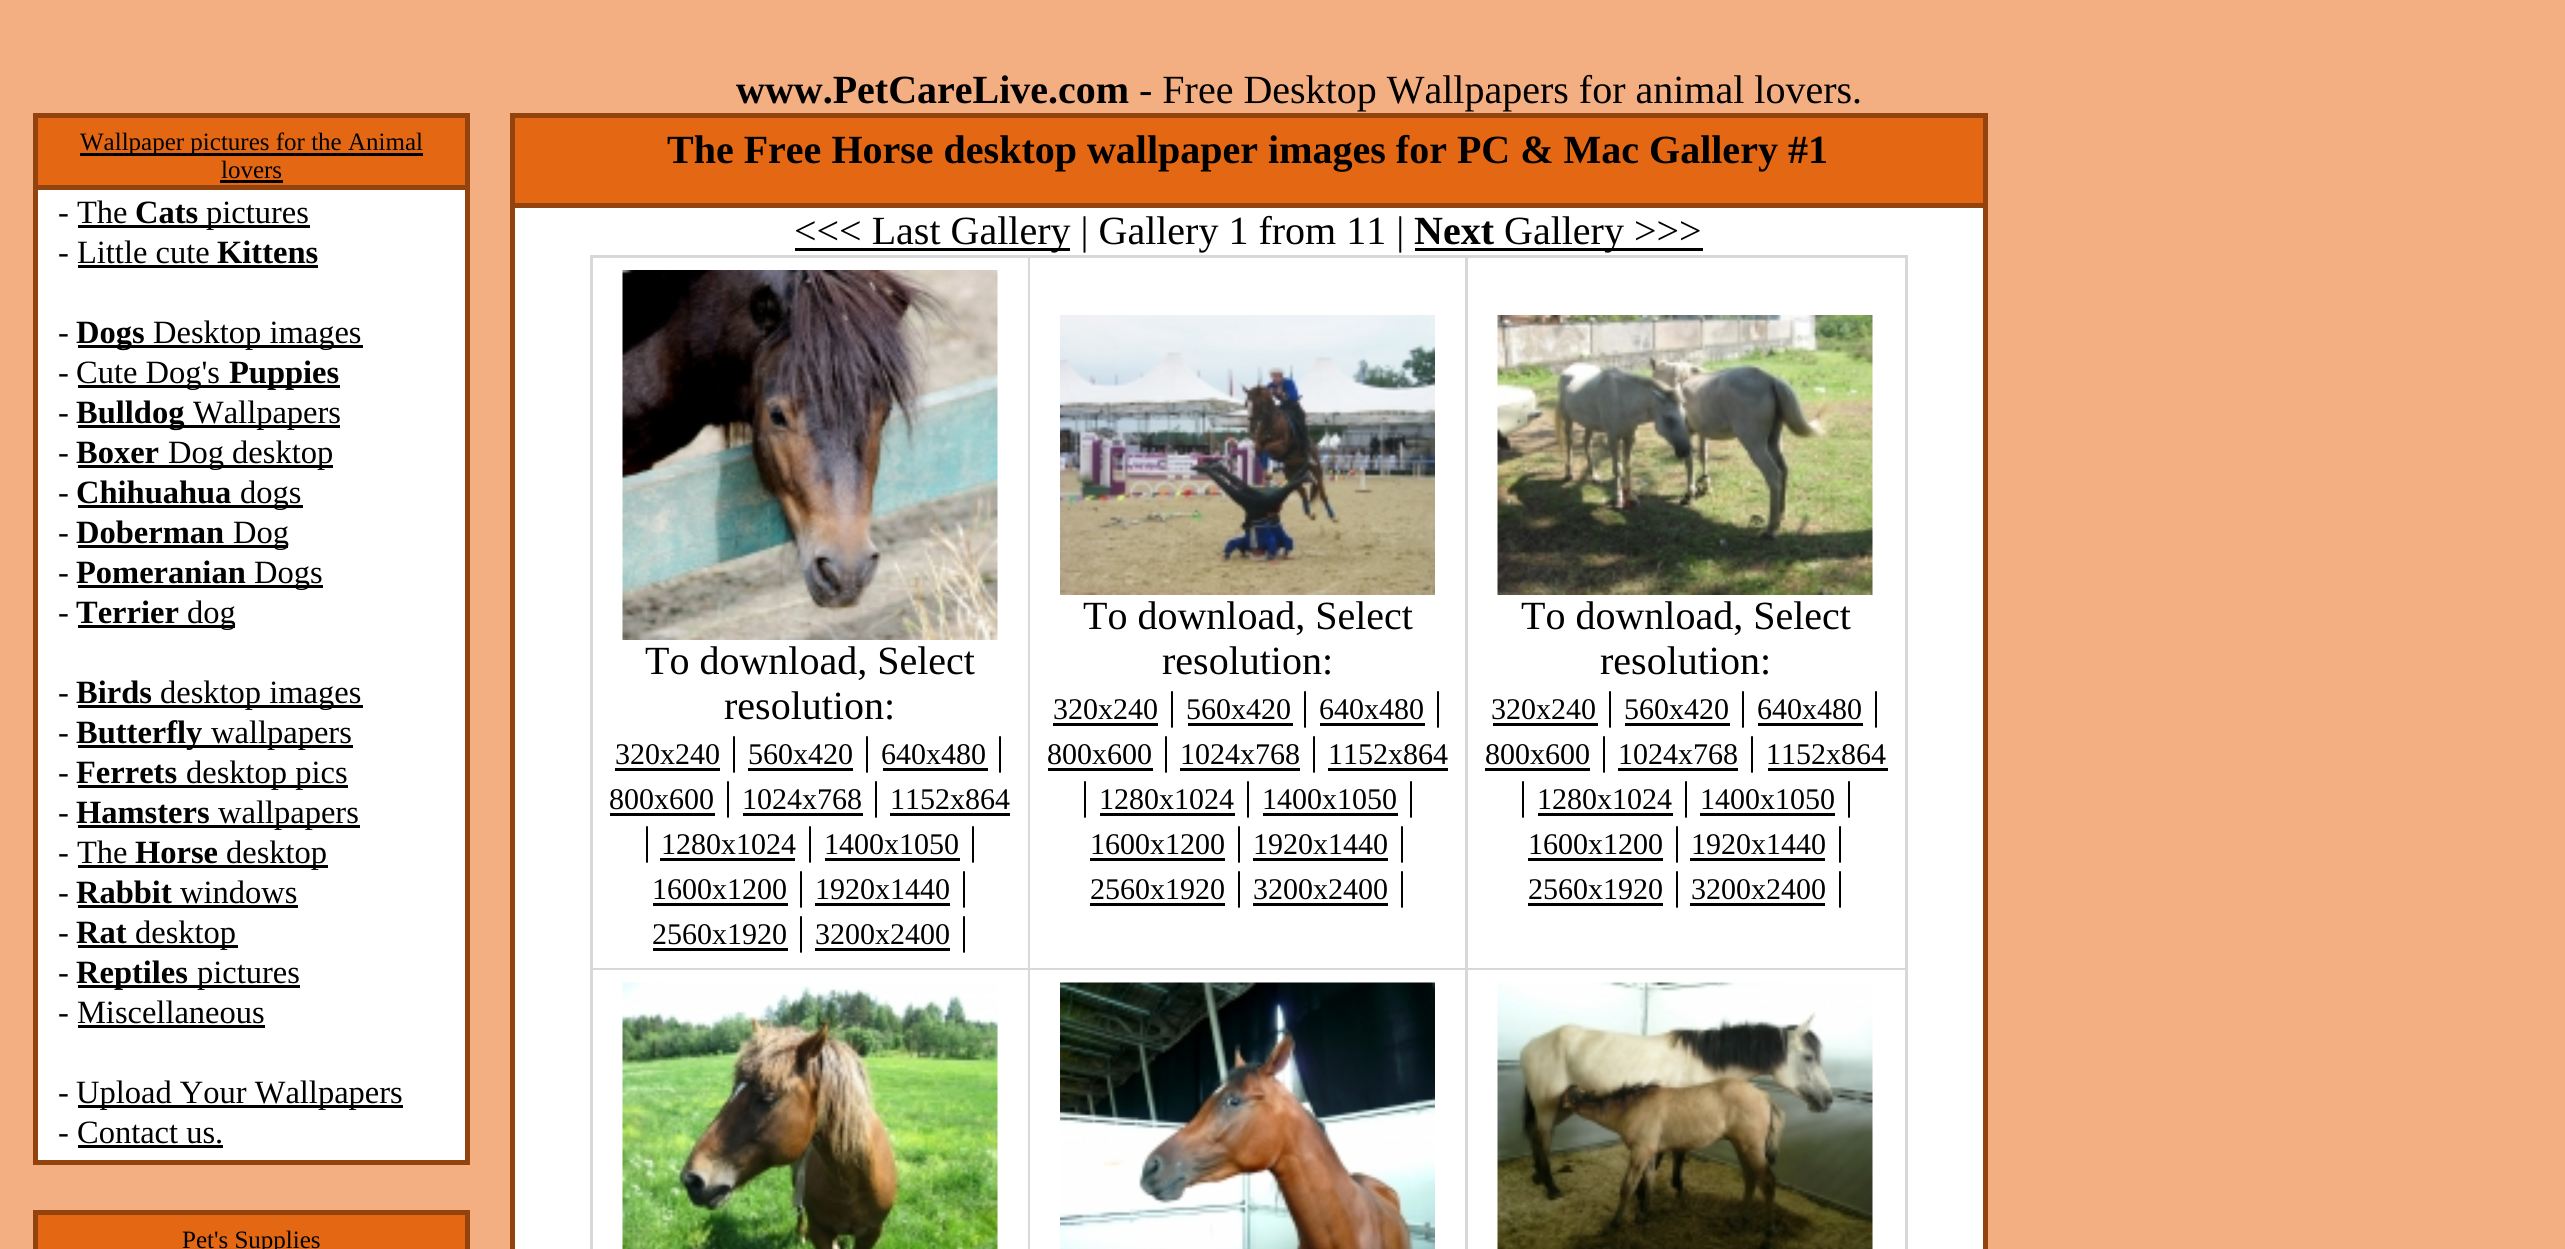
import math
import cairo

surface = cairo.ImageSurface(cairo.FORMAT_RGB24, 2565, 1249)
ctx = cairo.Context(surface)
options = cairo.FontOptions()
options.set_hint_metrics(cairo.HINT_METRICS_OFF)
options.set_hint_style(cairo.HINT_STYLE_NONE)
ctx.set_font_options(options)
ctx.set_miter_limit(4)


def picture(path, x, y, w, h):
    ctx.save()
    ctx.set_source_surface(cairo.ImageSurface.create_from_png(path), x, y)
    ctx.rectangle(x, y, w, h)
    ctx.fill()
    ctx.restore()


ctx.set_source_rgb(0.953, 0.682, 0.506)
ctx.paint()
ctx.select_font_face("Liberation Serif", cairo.FONT_SLANT_NORMAL, cairo.FONT_WEIGHT_BOLD)
ctx.set_font_size(40)
ctx.set_source_rgb(0, 0, 0)
ctx.move_to(736, 103)
ctx.show_text("www.PetCareLive.com")
ctx.select_font_face("Liberation Serif")
ctx.move_to(1139, 103)
ctx.show_text("- Free Desktop Wallpapers for animal lovers.")
ctx.set_source_rgb(0.573, 0.263, 0.055)
ctx.rectangle(33, 113, 437, 1052)
ctx.fill()
ctx.set_source_rgb(0.894, 0.404, 0.078)
ctx.rectangle(38, 118, 427, 67)
ctx.fill()
ctx.set_source_rgb(0, 0, 0)
ctx.rectangle(80, 153, 343, 3)
ctx.fill()
ctx.set_font_size(25)
ctx.move_to(80, 150)
ctx.show_text("Wallpaper pictures for the Animal")
ctx.move_to(221, 178)
ctx.show_text("lovers")
ctx.rectangle(220, 180, 63, 3)
ctx.fill()
ctx.set_source_rgb(1, 1, 1)
ctx.rectangle(38, 190, 427, 970)
ctx.fill()
ctx.set_font_size(32.5)
ctx.set_source_rgb(0, 0, 0)
ctx.move_to(58, 223)
ctx.show_text("- The")
ctx.select_font_face("Liberation Serif", cairo.FONT_SLANT_NORMAL, cairo.FONT_WEIGHT_BOLD)
ctx.move_to(135, 223)
ctx.show_text("Cats")
ctx.rectangle(78, 225, 232, 3)
ctx.fill()
ctx.select_font_face("Liberation Serif")
ctx.move_to(206, 223)
ctx.show_text("pictures")
ctx.move_to(58, 263)
ctx.show_text("- Little cute")
ctx.select_font_face("Liberation Serif", cairo.FONT_SLANT_NORMAL, cairo.FONT_WEIGHT_BOLD)
ctx.move_to(217, 263)
ctx.show_text("Kittens")
ctx.rectangle(78, 265, 240, 3)
ctx.fill()
ctx.select_font_face("Liberation Serif")
ctx.move_to(58, 343)
ctx.show_text("-")
ctx.rectangle(78, 345, 285, 3)
ctx.fill()
ctx.select_font_face("Liberation Serif", cairo.FONT_SLANT_NORMAL, cairo.FONT_WEIGHT_BOLD)
ctx.move_to(76, 343)
ctx.show_text("Dogs")
ctx.select_font_face("Liberation Serif")
ctx.move_to(153, 343)
ctx.show_text("Desktop images")
ctx.move_to(58, 383)
ctx.show_text("-")
ctx.rectangle(78, 385, 262, 3)
ctx.fill()
ctx.move_to(76, 383)
ctx.show_text("Cute Dog's")
ctx.select_font_face("Liberation Serif", cairo.FONT_SLANT_NORMAL, cairo.FONT_WEIGHT_BOLD)
ctx.move_to(229, 383)
ctx.show_text("Puppies")
ctx.select_font_face("Liberation Serif")
ctx.move_to(58, 423)
ctx.show_text("-")
ctx.rectangle(78, 425, 262, 3)
ctx.fill()
ctx.select_font_face("Liberation Serif", cairo.FONT_SLANT_NORMAL, cairo.FONT_WEIGHT_BOLD)
ctx.move_to(76, 423)
ctx.show_text("Bulldog")
ctx.select_font_face("Liberation Serif")
ctx.move_to(193, 423)
ctx.show_text("Wallpapers")
ctx.move_to(58, 463)
ctx.show_text("-")
ctx.select_font_face("Liberation Serif", cairo.FONT_SLANT_NORMAL, cairo.FONT_WEIGHT_BOLD)
ctx.move_to(76, 463)
ctx.show_text("Boxer")
ctx.rectangle(78, 465, 255, 3)
ctx.fill()
ctx.select_font_face("Liberation Serif")
ctx.move_to(168, 463)
ctx.show_text("Dog desktop")
ctx.move_to(58, 503)
ctx.show_text("-")
ctx.select_font_face("Liberation Serif", cairo.FONT_SLANT_NORMAL, cairo.FONT_WEIGHT_BOLD)
ctx.move_to(76, 503)
ctx.show_text("Chihuahua")
ctx.rectangle(78, 505, 225, 3)
ctx.fill()
ctx.select_font_face("Liberation Serif")
ctx.move_to(240, 503)
ctx.show_text("dogs")
ctx.move_to(58, 543)
ctx.show_text("-")
ctx.select_font_face("Liberation Serif", cairo.FONT_SLANT_NORMAL, cairo.FONT_WEIGHT_BOLD)
ctx.move_to(76, 543)
ctx.show_text("Doberman")
ctx.rectangle(78, 545, 210, 3)
ctx.fill()
ctx.select_font_face("Liberation Serif")
ctx.move_to(233, 543)
ctx.show_text("Dog")
ctx.move_to(58, 583)
ctx.show_text("-")
ctx.select_font_face("Liberation Serif", cairo.FONT_SLANT_NORMAL, cairo.FONT_WEIGHT_BOLD)
ctx.move_to(76, 583)
ctx.show_text("Pomeranian")
ctx.rectangle(78, 585, 245, 3)
ctx.fill()
ctx.select_font_face("Liberation Serif")
ctx.move_to(254, 583)
ctx.show_text("Dogs")
ctx.move_to(58, 623)
ctx.show_text("-")
ctx.select_font_face("Liberation Serif", cairo.FONT_SLANT_NORMAL, cairo.FONT_WEIGHT_BOLD)
ctx.move_to(76, 623)
ctx.show_text("Terrier")
ctx.rectangle(78, 625, 157, 3)
ctx.fill()
ctx.select_font_face("Liberation Serif")
ctx.move_to(187, 623)
ctx.show_text("dog")
ctx.move_to(58, 703)
ctx.show_text("-")
ctx.select_font_face("Liberation Serif", cairo.FONT_SLANT_NORMAL, cairo.FONT_WEIGHT_BOLD)
ctx.move_to(76, 703)
ctx.show_text("Birds")
ctx.rectangle(78, 705, 285, 3)
ctx.fill()
ctx.select_font_face("Liberation Serif")
ctx.move_to(160, 703)
ctx.show_text("desktop images")
ctx.move_to(58, 743)
ctx.show_text("-")
ctx.rectangle(78, 745, 275, 3)
ctx.fill()
ctx.select_font_face("Liberation Serif", cairo.FONT_SLANT_NORMAL, cairo.FONT_WEIGHT_BOLD)
ctx.move_to(76, 743)
ctx.show_text("Butterfly")
ctx.select_font_face("Liberation Serif")
ctx.move_to(211, 743)
ctx.show_text("wallpapers")
ctx.move_to(58, 783)
ctx.show_text("-")
ctx.select_font_face("Liberation Serif", cairo.FONT_SLANT_NORMAL, cairo.FONT_WEIGHT_BOLD)
ctx.move_to(76, 783)
ctx.show_text("Ferrets")
ctx.rectangle(78, 785, 270, 3)
ctx.fill()
ctx.select_font_face("Liberation Serif")
ctx.move_to(186, 783)
ctx.show_text("desktop pics")
ctx.move_to(58, 823)
ctx.show_text("-")
ctx.select_font_face("Liberation Serif", cairo.FONT_SLANT_NORMAL, cairo.FONT_WEIGHT_BOLD)
ctx.move_to(76, 823)
ctx.show_text("Hamsters")
ctx.rectangle(78, 825, 282, 3)
ctx.fill()
ctx.select_font_face("Liberation Serif")
ctx.move_to(218, 823)
ctx.show_text("wallpapers")
ctx.move_to(58, 863)
ctx.show_text("- The")
ctx.select_font_face("Liberation Serif", cairo.FONT_SLANT_NORMAL, cairo.FONT_WEIGHT_BOLD)
ctx.move_to(135, 863)
ctx.show_text("Horse")
ctx.rectangle(78, 865, 250, 3)
ctx.fill()
ctx.select_font_face("Liberation Serif")
ctx.move_to(226, 863)
ctx.show_text("desktop")
ctx.move_to(58, 903)
ctx.show_text("-")
ctx.select_font_face("Liberation Serif", cairo.FONT_SLANT_NORMAL, cairo.FONT_WEIGHT_BOLD)
ctx.move_to(76, 903)
ctx.show_text("Rabbit")
ctx.rectangle(78, 905, 220, 3)
ctx.fill()
ctx.select_font_face("Liberation Serif")
ctx.move_to(180, 903)
ctx.show_text("windows")
ctx.move_to(58, 943)
ctx.show_text("-")
ctx.select_font_face("Liberation Serif", cairo.FONT_SLANT_NORMAL, cairo.FONT_WEIGHT_BOLD)
ctx.move_to(76, 943)
ctx.show_text("Rat")
ctx.rectangle(78, 945, 160, 3)
ctx.fill()
ctx.select_font_face("Liberation Serif")
ctx.move_to(135, 943)
ctx.show_text("desktop")
ctx.move_to(58, 983)
ctx.show_text("-")
ctx.rectangle(78, 985, 222, 3)
ctx.fill()
ctx.select_font_face("Liberation Serif", cairo.FONT_SLANT_NORMAL, cairo.FONT_WEIGHT_BOLD)
ctx.move_to(76, 983)
ctx.show_text("Reptiles")
ctx.select_font_face("Liberation Serif")
ctx.move_to(197, 983)
ctx.show_text("pictures")
ctx.move_to(58, 1023)
ctx.show_text("- Miscellaneous")
ctx.rectangle(78, 1025, 187, 3)
ctx.fill()
ctx.move_to(58, 1103)
ctx.show_text("-")
ctx.rectangle(78, 1105, 325, 3)
ctx.fill()
ctx.move_to(76, 1103)
ctx.show_text("Upload Your Wallpapers")
ctx.move_to(58, 1143)
ctx.show_text("- Contact us.")
ctx.rectangle(78, 1145, 145, 3)
ctx.fill()
ctx.set_source_rgb(0.573, 0.263, 0.055)
ctx.rectangle(33, 1210, 437, 39)
ctx.fill()
ctx.set_source_rgb(0.894, 0.404, 0.078)
ctx.rectangle(38, 1215, 427, 34)
ctx.fill()
ctx.set_font_size(25)
ctx.set_source_rgb(0, 0, 0)
ctx.move_to(182, 1248)
ctx.show_text("Pet's Supplies")
ctx.set_source_rgb(0.573, 0.263, 0.055)
ctx.rectangle(510, 113, 1478, 1136)
ctx.fill()
ctx.set_source_rgb(0.894, 0.404, 0.078)
ctx.rectangle(515, 118, 1468, 85)
ctx.fill()
ctx.select_font_face("Liberation Serif", cairo.FONT_SLANT_NORMAL, cairo.FONT_WEIGHT_BOLD)
ctx.set_font_size(40)
ctx.set_source_rgb(0, 0, 0)
ctx.move_to(667, 163)
ctx.show_text("The Free Horse desktop wallpaper images for PC & Mac Gallery #1")
ctx.set_source_rgb(1, 1, 1)
ctx.rectangle(515, 208, 1468, 1041)
ctx.fill()
ctx.set_source_rgb(0, 0, 0)
ctx.rectangle(795, 248, 275, 3)
ctx.fill()
ctx.select_font_face("Liberation Serif")
ctx.move_to(794, 244)
ctx.show_text("<<< Last Gallery | Gallery 1 from 11 |")
ctx.select_font_face("Liberation Serif", cairo.FONT_SLANT_NORMAL, cairo.FONT_WEIGHT_BOLD)
ctx.move_to(1414, 244)
ctx.show_text("Next")
ctx.rectangle(1415, 248, 288, 3)
ctx.fill()
ctx.select_font_face("Liberation Serif")
ctx.move_to(1504, 244)
ctx.show_text("Gallery >>>")
ctx.set_source_rgb(0.847, 0.847, 0.847)
ctx.rectangle(590, 255, 1318, 994)
ctx.fill()
ctx.set_source_rgb(1, 1, 1)
ctx.rectangle(593, 258, 435, 710)
ctx.fill()
picture("img1.png", 622, 270, 376, 370)
ctx.set_source_rgb(0, 0, 0)
ctx.move_to(645, 674)
ctx.show_text("To download, Select")
ctx.move_to(724, 719)
ctx.show_text("resolution:")
ctx.set_font_size(30)
ctx.move_to(615, 764)
ctx.show_text("320x240")
ctx.rectangle(615, 768, 105, 3)
ctx.fill()
ctx.set_font_size(40)
ctx.move_to(730, 764)
ctx.show_text("|")
ctx.set_font_size(30)
ctx.move_to(748, 764)
ctx.show_text("560x420")
ctx.rectangle(748, 768, 105, 3)
ctx.fill()
ctx.set_font_size(40)
ctx.move_to(863, 764)
ctx.show_text("|")
ctx.set_font_size(30)
ctx.move_to(881, 764)
ctx.show_text("640x480")
ctx.rectangle(883, 768, 105, 3)
ctx.fill()
ctx.set_font_size(40)
ctx.move_to(996, 764)
ctx.show_text("|")
ctx.set_font_size(30)
ctx.move_to(609, 809)
ctx.show_text("800x600")
ctx.rectangle(610, 813, 105, 3)
ctx.fill()
ctx.set_font_size(40)
ctx.move_to(724, 809)
ctx.show_text("|")
ctx.set_font_size(30)
ctx.move_to(742, 809)
ctx.show_text("1024x768")
ctx.rectangle(743, 813, 120, 3)
ctx.fill()
ctx.set_font_size(40)
ctx.move_to(872, 809)
ctx.show_text("|")
ctx.set_font_size(30)
ctx.move_to(890, 809)
ctx.show_text("1152x864")
ctx.rectangle(890, 813, 120, 3)
ctx.fill()
ctx.set_font_size(40)
ctx.move_to(643, 854)
ctx.show_text("|")
ctx.set_font_size(30)
ctx.move_to(661, 854)
ctx.show_text("1280x1024")
ctx.rectangle(660, 858, 135, 3)
ctx.fill()
ctx.set_font_size(40)
ctx.move_to(806, 854)
ctx.show_text("|")
ctx.set_font_size(30)
ctx.move_to(824, 854)
ctx.show_text("1400x1050")
ctx.rectangle(825, 858, 135, 3)
ctx.fill()
ctx.set_font_size(40)
ctx.move_to(969, 854)
ctx.show_text("|")
ctx.set_font_size(30)
ctx.move_to(652, 899)
ctx.show_text("1600x1200")
ctx.rectangle(653, 903, 135, 3)
ctx.fill()
ctx.set_font_size(40)
ctx.move_to(797, 899)
ctx.show_text("|")
ctx.set_font_size(30)
ctx.move_to(815, 899)
ctx.show_text("1920x1440")
ctx.rectangle(815, 903, 135, 3)
ctx.fill()
ctx.set_font_size(40)
ctx.move_to(960, 899)
ctx.show_text("|")
ctx.set_font_size(30)
ctx.move_to(652, 944)
ctx.show_text("2560x1920")
ctx.rectangle(653, 948, 135, 3)
ctx.fill()
ctx.set_font_size(40)
ctx.move_to(797, 944)
ctx.show_text("|")
ctx.set_font_size(30)
ctx.move_to(815, 944)
ctx.show_text("3200x2400")
ctx.rectangle(815, 948, 135, 3)
ctx.fill()
ctx.set_font_size(40)
ctx.move_to(960, 944)
ctx.show_text("|")
ctx.set_source_rgb(1, 1, 1)
ctx.rectangle(1030, 258, 435, 710)
ctx.fill()
picture("img2.png", 1060, 315, 375, 280)
ctx.set_source_rgb(0, 0, 0)
ctx.move_to(1083, 629)
ctx.show_text("To download, Select")
ctx.move_to(1162, 674)
ctx.show_text("resolution:")
ctx.set_font_size(30)
ctx.move_to(1053, 719)
ctx.show_text("320x240")
ctx.rectangle(1053, 723, 105, 3)
ctx.fill()
ctx.set_font_size(40)
ctx.move_to(1168, 719)
ctx.show_text("|")
ctx.set_font_size(30)
ctx.move_to(1186, 719)
ctx.show_text("560x420")
ctx.rectangle(1188, 723, 105, 3)
ctx.fill()
ctx.set_font_size(40)
ctx.move_to(1301, 719)
ctx.show_text("|")
ctx.set_font_size(30)
ctx.move_to(1319, 719)
ctx.show_text("640x480")
ctx.rectangle(1320, 723, 105, 3)
ctx.fill()
ctx.set_font_size(40)
ctx.move_to(1434, 719)
ctx.show_text("|")
ctx.set_font_size(30)
ctx.move_to(1047, 764)
ctx.show_text("800x600")
ctx.rectangle(1048, 768, 105, 3)
ctx.fill()
ctx.set_font_size(40)
ctx.move_to(1162, 764)
ctx.show_text("|")
ctx.set_font_size(30)
ctx.move_to(1180, 764)
ctx.show_text("1024x768")
ctx.rectangle(1180, 768, 120, 3)
ctx.fill()
ctx.set_font_size(40)
ctx.move_to(1310, 764)
ctx.show_text("|")
ctx.set_font_size(30)
ctx.move_to(1328, 764)
ctx.show_text("1152x864")
ctx.rectangle(1328, 768, 120, 3)
ctx.fill()
ctx.set_font_size(40)
ctx.move_to(1081, 809)
ctx.show_text("|")
ctx.set_font_size(30)
ctx.move_to(1099, 809)
ctx.show_text("1280x1024")
ctx.rectangle(1100, 813, 135, 3)
ctx.fill()
ctx.set_font_size(40)
ctx.move_to(1244, 809)
ctx.show_text("|")
ctx.set_font_size(30)
ctx.move_to(1262, 809)
ctx.show_text("1400x1050")
ctx.rectangle(1263, 813, 135, 3)
ctx.fill()
ctx.set_font_size(40)
ctx.move_to(1407, 809)
ctx.show_text("|")
ctx.set_font_size(30)
ctx.move_to(1090, 854)
ctx.show_text("1600x1200")
ctx.rectangle(1090, 858, 135, 3)
ctx.fill()
ctx.set_font_size(40)
ctx.move_to(1235, 854)
ctx.show_text("|")
ctx.set_font_size(30)
ctx.move_to(1253, 854)
ctx.show_text("1920x1440")
ctx.rectangle(1253, 858, 135, 3)
ctx.fill()
ctx.set_font_size(40)
ctx.move_to(1398, 854)
ctx.show_text("|")
ctx.set_font_size(30)
ctx.move_to(1090, 899)
ctx.show_text("2560x1920")
ctx.rectangle(1090, 903, 135, 3)
ctx.fill()
ctx.set_font_size(40)
ctx.move_to(1235, 899)
ctx.show_text("|")
ctx.set_font_size(30)
ctx.move_to(1253, 899)
ctx.show_text("3200x2400")
ctx.rectangle(1253, 903, 135, 3)
ctx.fill()
ctx.set_font_size(40)
ctx.move_to(1398, 899)
ctx.show_text("|")
ctx.set_source_rgb(1, 1, 1)
ctx.rectangle(1468, 258, 437, 710)
ctx.fill()
picture("img3.png", 1497, 315, 376, 280)
ctx.set_source_rgb(0, 0, 0)
ctx.move_to(1521, 629)
ctx.show_text("To download, Select")
ctx.move_to(1600, 674)
ctx.show_text("resolution:")
ctx.set_font_size(30)
ctx.move_to(1491, 719)
ctx.show_text("320x240")
ctx.rectangle(1493, 723, 105, 3)
ctx.fill()
ctx.set_font_size(40)
ctx.move_to(1606, 719)
ctx.show_text("|")
ctx.set_font_size(30)
ctx.move_to(1624, 719)
ctx.show_text("560x420")
ctx.rectangle(1625, 723, 105, 3)
ctx.fill()
ctx.set_font_size(40)
ctx.move_to(1739, 719)
ctx.show_text("|")
ctx.set_font_size(30)
ctx.move_to(1757, 719)
ctx.show_text("640x480")
ctx.rectangle(1758, 723, 105, 3)
ctx.fill()
ctx.set_font_size(40)
ctx.move_to(1872, 719)
ctx.show_text("|")
ctx.set_font_size(30)
ctx.move_to(1485, 764)
ctx.show_text("800x600")
ctx.rectangle(1485, 768, 105, 3)
ctx.fill()
ctx.set_font_size(40)
ctx.move_to(1600, 764)
ctx.show_text("|")
ctx.set_font_size(30)
ctx.move_to(1618, 764)
ctx.show_text("1024x768")
ctx.rectangle(1618, 768, 120, 3)
ctx.fill()
ctx.set_font_size(40)
ctx.move_to(1748, 764)
ctx.show_text("|")
ctx.set_font_size(30)
ctx.move_to(1766, 764)
ctx.show_text("1152x864")
ctx.rectangle(1768, 768, 120, 3)
ctx.fill()
ctx.set_font_size(40)
ctx.move_to(1519, 809)
ctx.show_text("|")
ctx.set_font_size(30)
ctx.move_to(1537, 809)
ctx.show_text("1280x1024")
ctx.rectangle(1538, 813, 135, 3)
ctx.fill()
ctx.set_font_size(40)
ctx.move_to(1682, 809)
ctx.show_text("|")
ctx.set_font_size(30)
ctx.move_to(1700, 809)
ctx.show_text("1400x1050")
ctx.rectangle(1700, 813, 135, 3)
ctx.fill()
ctx.set_font_size(40)
ctx.move_to(1845, 809)
ctx.show_text("|")
ctx.set_font_size(30)
ctx.move_to(1528, 854)
ctx.show_text("1600x1200")
ctx.rectangle(1528, 858, 135, 3)
ctx.fill()
ctx.set_font_size(40)
ctx.move_to(1673, 854)
ctx.show_text("|")
ctx.set_font_size(30)
ctx.move_to(1691, 854)
ctx.show_text("1920x1440")
ctx.rectangle(1690, 858, 135, 3)
ctx.fill()
ctx.set_font_size(40)
ctx.move_to(1836, 854)
ctx.show_text("|")
ctx.set_font_size(30)
ctx.move_to(1528, 899)
ctx.show_text("2560x1920")
ctx.rectangle(1528, 903, 135, 3)
ctx.fill()
ctx.set_font_size(40)
ctx.move_to(1673, 899)
ctx.show_text("|")
ctx.set_font_size(30)
ctx.move_to(1691, 899)
ctx.show_text("3200x2400")
ctx.rectangle(1690, 903, 135, 3)
ctx.fill()
ctx.set_font_size(40)
ctx.move_to(1836, 899)
ctx.show_text("|")
ctx.set_source_rgb(1, 1, 1)
ctx.rectangle(593, 970, 435, 279)
ctx.fill()
picture("img4.png", 622, 982, 376, 267)
ctx.rectangle(1030, 970, 435, 279)
ctx.fill()
picture("img5.png", 1060, 982, 375, 267)
ctx.rectangle(1468, 970, 437, 279)
ctx.fill()
picture("img6.png", 1497, 982, 376, 267)
surface.write_to_png("page.png")
